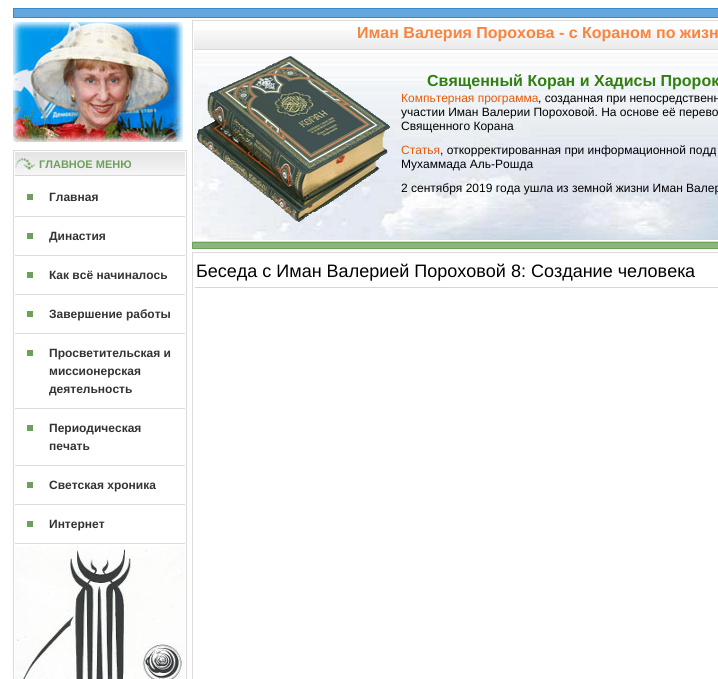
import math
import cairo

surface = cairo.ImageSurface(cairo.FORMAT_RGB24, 718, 679)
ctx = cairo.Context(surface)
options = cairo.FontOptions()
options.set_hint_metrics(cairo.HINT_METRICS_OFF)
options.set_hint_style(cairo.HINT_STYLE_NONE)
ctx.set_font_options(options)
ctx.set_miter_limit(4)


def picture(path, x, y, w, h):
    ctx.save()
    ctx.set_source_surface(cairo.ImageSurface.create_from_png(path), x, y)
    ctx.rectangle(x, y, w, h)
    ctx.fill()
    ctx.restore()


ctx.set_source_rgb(1, 1, 1)
ctx.paint()
ctx.set_source_rgb(0.392, 0.655, 0.867)
ctx.rectangle(13.5, 8.5, 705, 9)
ctx.fill_preserve()
ctx.set_source_rgb(0.204, 0.541, 0.827)
ctx.set_line_width(1)
ctx.stroke()
picture("img1.png", 13, 22, 170, 120)
ctx.rectangle(13.5, 150.5, 173, 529)
ctx.set_source_rgb(0.859, 0.859, 0.859)
ctx.stroke()
picture("img2.png", 15, 152, 170, 24)
ctx.select_font_face("Liberation Sans", cairo.FONT_SLANT_NORMAL, cairo.FONT_WEIGHT_BOLD)
ctx.set_font_size(11)
ctx.set_source_rgb(0.427, 0.627, 0.357)
ctx.move_to(39, 168)
ctx.show_text("ГЛАВНОЕ МЕНЮ")
ctx.rectangle(27, 194, 6, 6)
ctx.fill()
ctx.set_source_rgb(0.859, 0.859, 0.859)
ctx.rectangle(15, 216, 170, 1)
ctx.fill()
ctx.set_font_size(12)
ctx.set_source_rgb(0.2, 0.2, 0.2)
ctx.move_to(49, 201)
ctx.show_text("Главная")
ctx.set_source_rgb(0.427, 0.627, 0.357)
ctx.rectangle(27, 233, 6, 6)
ctx.fill()
ctx.set_source_rgb(0.859, 0.859, 0.859)
ctx.rectangle(15, 255, 170, 1)
ctx.fill()
ctx.set_source_rgb(0.2, 0.2, 0.2)
ctx.move_to(49, 240)
ctx.show_text("Династия")
ctx.set_source_rgb(0.427, 0.627, 0.357)
ctx.rectangle(27, 272, 6, 6)
ctx.fill()
ctx.set_source_rgb(0.859, 0.859, 0.859)
ctx.rectangle(15, 294, 170, 1)
ctx.fill()
ctx.set_source_rgb(0.2, 0.2, 0.2)
ctx.move_to(49, 279)
ctx.show_text("Как всё начиналось")
ctx.set_source_rgb(0.427, 0.627, 0.357)
ctx.rectangle(27, 311, 6, 6)
ctx.fill()
ctx.set_source_rgb(0.859, 0.859, 0.859)
ctx.rectangle(15, 333, 170, 1)
ctx.fill()
ctx.set_source_rgb(0.2, 0.2, 0.2)
ctx.move_to(49, 318)
ctx.show_text("Завершение работы")
ctx.set_source_rgb(0.427, 0.627, 0.357)
ctx.rectangle(27, 350, 6, 6)
ctx.fill()
ctx.set_source_rgb(0.859, 0.859, 0.859)
ctx.rectangle(15, 408, 170, 1)
ctx.fill()
ctx.set_source_rgb(0.2, 0.2, 0.2)
ctx.move_to(49, 357)
ctx.show_text("Просветительская и")
ctx.move_to(49, 375)
ctx.show_text("миссионерская")
ctx.move_to(49, 393)
ctx.show_text("деятельность")
ctx.set_source_rgb(0.427, 0.627, 0.357)
ctx.rectangle(27, 425, 6, 6)
ctx.fill()
ctx.set_source_rgb(0.859, 0.859, 0.859)
ctx.rectangle(15, 465, 170, 1)
ctx.fill()
ctx.set_source_rgb(0.2, 0.2, 0.2)
ctx.move_to(49, 432)
ctx.show_text("Периодическая")
ctx.move_to(49, 450)
ctx.show_text("печать")
ctx.set_source_rgb(0.427, 0.627, 0.357)
ctx.rectangle(27, 482, 6, 6)
ctx.fill()
ctx.set_source_rgb(0.859, 0.859, 0.859)
ctx.rectangle(15, 504, 170, 1)
ctx.fill()
ctx.set_source_rgb(0.2, 0.2, 0.2)
ctx.move_to(49, 489)
ctx.show_text("Светская хроника")
ctx.set_source_rgb(0.427, 0.627, 0.357)
ctx.rectangle(27, 521, 6, 6)
ctx.fill()
ctx.set_source_rgb(0.859, 0.859, 0.859)
ctx.rectangle(15, 543, 170, 1)
ctx.fill()
ctx.set_source_rgb(0.2, 0.2, 0.2)
ctx.move_to(49, 528)
ctx.show_text("Интернет")
picture("img3.png", 15, 546, 170, 133)
ctx.rectangle(192.5, 20.5, 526, 221)
ctx.set_source_rgb(0.859, 0.859, 0.859)
ctx.stroke()
picture("img4.png", 194, 30, 524, 19)
ctx.rectangle(194, 49, 524, 1)
ctx.fill()
ctx.set_font_size(16)
ctx.set_source_rgb(0.976, 0.518, 0.243)
ctx.move_to(357, 38)
ctx.show_text("Иман Валерия Порохова - с Кораном по жизн")
picture("img5.png", 194, 53, 524, 187)
picture("img6.png", 197, 56, 193, 166)
ctx.set_source_rgb(0.188, 0.502, 0.063)
ctx.move_to(427, 86)
ctx.show_text("Священный Коран и Хадисы Пророк")
ctx.select_font_face("Liberation Sans")
ctx.set_font_size(12)
ctx.set_source_rgb(0.906, 0.353, 0.031)
ctx.move_to(401, 102)
ctx.show_text("Компьтерная программа")
ctx.set_source_rgb(0, 0, 0)
ctx.move_to(538, 102)
ctx.show_text(", созданная при непосредственн")
ctx.move_to(401, 116)
ctx.show_text("участии Иман Валерии Пороховой. На основе её перево")
ctx.move_to(401, 130)
ctx.show_text("Священного Корана")
ctx.set_source_rgb(0.906, 0.353, 0.031)
ctx.move_to(401, 154)
ctx.show_text("Статья")
ctx.set_source_rgb(0, 0, 0)
ctx.move_to(440, 154)
ctx.show_text(", откорректированная при информационной подд")
ctx.move_to(401, 168)
ctx.show_text("Мухаммада Аль-Рошда")
ctx.move_to(401, 192)
ctx.show_text("2 сентября 2019 года ушла из земной жизни Иман Валер")
ctx.rectangle(192.5, 242.5, 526, 6)
ctx.set_source_rgb(0.427, 0.627, 0.357)
ctx.stroke()
ctx.set_source_rgb(0.545, 0.714, 0.502)
ctx.rectangle(193, 243, 525, 5)
ctx.fill()
ctx.rectangle(192.5, 252.5, 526, 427)
ctx.set_source_rgb(0.859, 0.859, 0.859)
ctx.stroke()
ctx.set_source_rgb(0.839, 0.839, 0.839)
ctx.rectangle(195, 287, 523, 1)
ctx.fill()
ctx.set_font_size(18)
ctx.set_source_rgb(0, 0, 0)
ctx.move_to(196, 277)
ctx.show_text("Беседа с Иман Валерией Пороховой 8: Создание человека")
surface.write_to_png("page.png")
